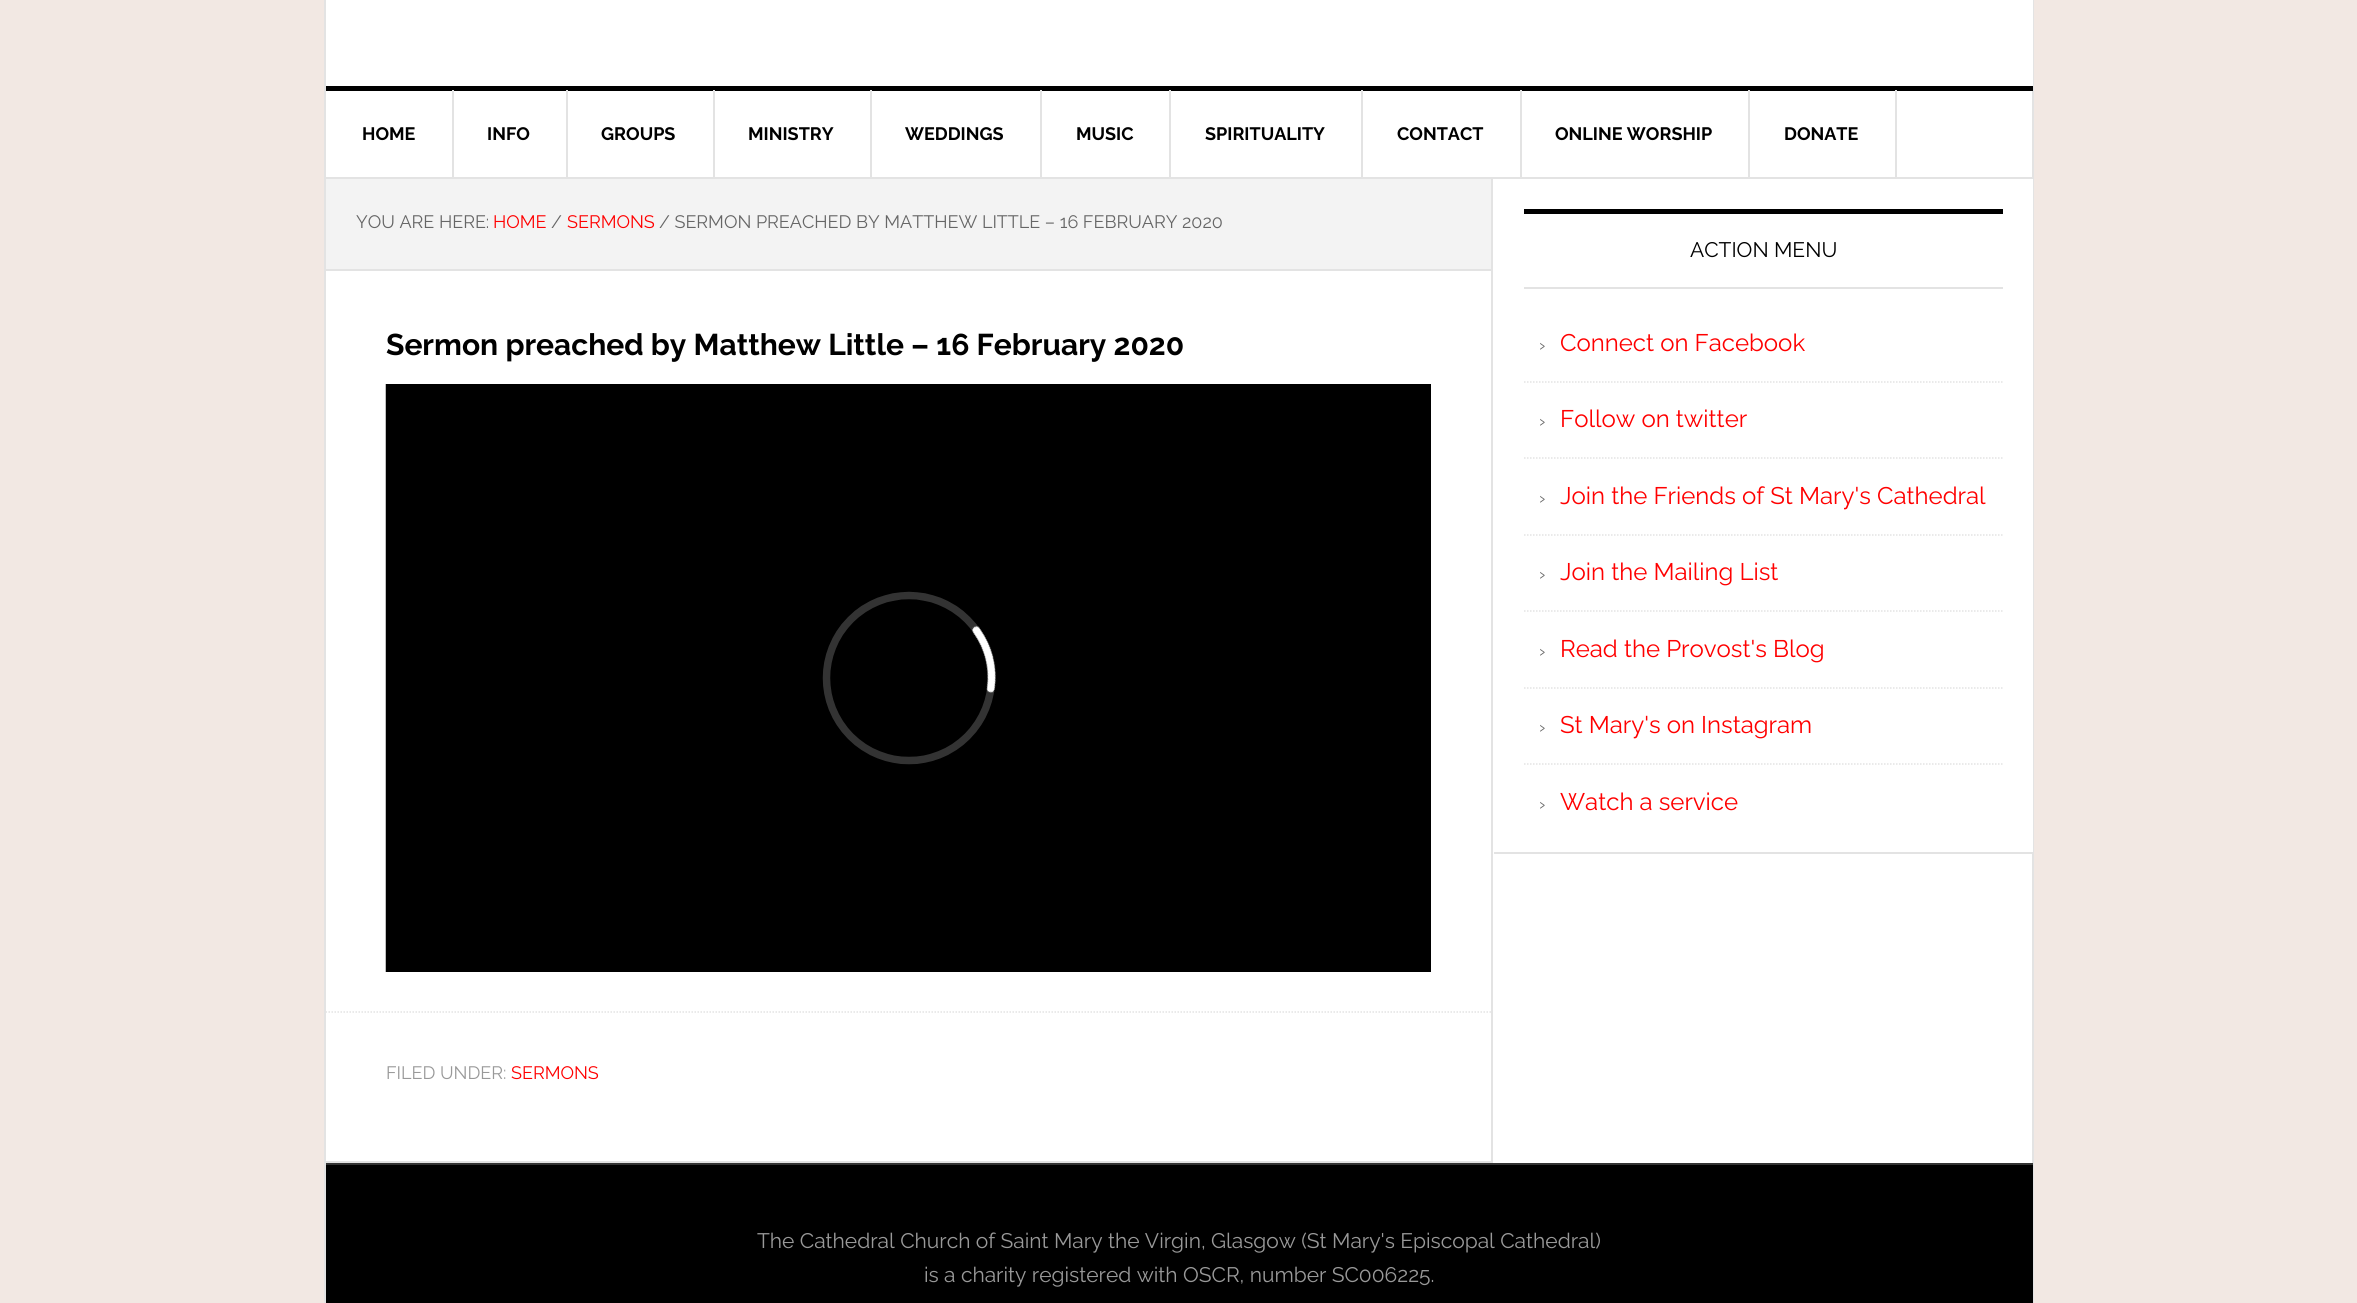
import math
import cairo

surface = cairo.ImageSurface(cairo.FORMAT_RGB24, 2357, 1303)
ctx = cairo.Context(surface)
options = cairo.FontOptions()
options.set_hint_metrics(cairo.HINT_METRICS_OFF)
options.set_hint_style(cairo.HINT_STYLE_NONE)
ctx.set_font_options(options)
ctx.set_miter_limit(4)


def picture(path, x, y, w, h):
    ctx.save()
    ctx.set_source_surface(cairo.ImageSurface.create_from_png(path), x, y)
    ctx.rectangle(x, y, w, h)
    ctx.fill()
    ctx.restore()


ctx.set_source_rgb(0.949, 0.91, 0.89)
ctx.paint()
ctx.set_source_rgb(1, 1, 1)
ctx.rectangle(326, 91, 1706, 1072)
ctx.fill()
ctx.rectangle(325, -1, 1708, 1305)
ctx.set_source_rgb(0.89, 0.89, 0.89)
ctx.stroke()
ctx.set_source_rgb(1, 1, 1)
ctx.rectangle(326, 0, 1707, 86)
ctx.fill()
ctx.set_source_rgb(0, 0, 0)
ctx.rectangle(326, 86, 1707, 5)
ctx.fill()
ctx.set_source_rgb(0.89, 0.89, 0.89)
ctx.rectangle(326, 177, 1707, 2)
ctx.fill()
ctx.rectangle(452, 90, 2, 87)
ctx.fill()
ctx.select_font_face("Raleway", cairo.FONT_SLANT_NORMAL, cairo.FONT_WEIGHT_BOLD)
ctx.set_font_size(18)
ctx.set_source_rgb(0, 0, 0)
ctx.move_to(362, 140)
ctx.show_text("HOME")
ctx.set_source_rgb(0.89, 0.89, 0.89)
ctx.rectangle(566, 90, 2, 87)
ctx.fill()
ctx.set_source_rgb(0, 0, 0)
ctx.move_to(487, 140)
ctx.show_text("INFO")
ctx.set_source_rgb(0.89, 0.89, 0.89)
ctx.rectangle(713, 90, 2, 87)
ctx.fill()
ctx.set_source_rgb(0, 0, 0)
ctx.move_to(601, 140)
ctx.show_text("GROUPS")
ctx.set_source_rgb(0.89, 0.89, 0.89)
ctx.rectangle(870, 90, 2, 87)
ctx.fill()
ctx.set_source_rgb(0, 0, 0)
ctx.move_to(748, 140)
ctx.show_text("MINISTRY")
ctx.set_source_rgb(0.89, 0.89, 0.89)
ctx.rectangle(1040, 90, 2, 87)
ctx.fill()
ctx.set_source_rgb(0, 0, 0)
ctx.move_to(905, 140)
ctx.show_text("WEDDINGS")
ctx.set_source_rgb(0.89, 0.89, 0.89)
ctx.rectangle(1169, 90, 2, 87)
ctx.fill()
ctx.set_source_rgb(0, 0, 0)
ctx.move_to(1076, 140)
ctx.show_text("MUSIC")
ctx.set_source_rgb(0.89, 0.89, 0.89)
ctx.rectangle(1361, 90, 2, 87)
ctx.fill()
ctx.set_source_rgb(0, 0, 0)
ctx.move_to(1205, 140)
ctx.show_text("SPIRITUALITY")
ctx.set_source_rgb(0.89, 0.89, 0.89)
ctx.rectangle(1520, 90, 2, 87)
ctx.fill()
ctx.set_source_rgb(0, 0, 0)
ctx.move_to(1397, 140)
ctx.show_text("CONTACT")
ctx.set_source_rgb(0.89, 0.89, 0.89)
ctx.rectangle(1748, 90, 2, 87)
ctx.fill()
ctx.set_source_rgb(0, 0, 0)
ctx.move_to(1555, 140)
ctx.show_text("ONLINE WORSHIP")
ctx.set_source_rgb(0.89, 0.89, 0.89)
ctx.rectangle(1895, 90, 2, 87)
ctx.fill()
ctx.set_source_rgb(0, 0, 0)
ctx.move_to(1784, 140)
ctx.show_text("DONATE")
ctx.set_source_rgb(0.89, 0.89, 0.89)
ctx.rectangle(1491, 179, 2, 984)
ctx.fill()
ctx.set_source_rgb(0.953, 0.953, 0.953)
ctx.rectangle(326, 179, 1165, 90)
ctx.fill()
ctx.set_source_rgb(0.89, 0.89, 0.89)
ctx.rectangle(326, 269, 1165, 2)
ctx.fill()
ctx.select_font_face("Raleway")
ctx.set_source_rgb(0.4, 0.4, 0.4)
ctx.move_to(356, 228)
ctx.show_text("YOU ARE HERE:")
ctx.set_source_rgb(1, 0, 0)
ctx.move_to(493, 228)
ctx.show_text("HOME")
ctx.set_source_rgb(0.4, 0.4, 0.4)
ctx.move_to(551, 228)
ctx.show_text("/")
ctx.set_source_rgb(1, 0, 0)
ctx.move_to(567, 228)
ctx.show_text("SERMONS")
ctx.set_source_rgb(0.4, 0.4, 0.4)
ctx.move_to(659, 228)
ctx.show_text("/ SERMON PREACHED BY MATTHEW LITTLE – 16 FEBRUARY 2020")
ctx.set_source_rgb(0.89, 0.89, 0.89)
ctx.rectangle(326, 1161, 1165, 2)
ctx.fill()
ctx.select_font_face("Raleway", cairo.FONT_SLANT_NORMAL, cairo.FONT_WEIGHT_BOLD)
ctx.set_font_size(30)
ctx.set_source_rgb(0, 0, 0)
ctx.move_to(386, 355)
ctx.show_text("Sermon preached by Matthew Little – 16 February 2020")
picture("img1.png", 385, 384, 1046, 588)
ctx.new_path()
ctx.move_to(325.5, 1012)
ctx.line_to(1491, 1012)
ctx.set_source_rgb(0.89, 0.89, 0.89)
ctx.set_line_width(1.5)
ctx.set_dash([1.5, 1.5])
ctx.stroke()
ctx.select_font_face("Raleway")
ctx.set_font_size(18)
ctx.set_source_rgb(0.6, 0.6, 0.6)
ctx.move_to(386, 1079)
ctx.show_text("FILED UNDER:")
ctx.set_source_rgb(1, 0, 0)
ctx.move_to(511, 1079)
ctx.show_text("SERMONS")
ctx.set_source_rgb(1, 1, 1)
ctx.rectangle(2032, 179, 1, 673)
ctx.fill()
ctx.set_source_rgb(0.89, 0.89, 0.89)
ctx.rectangle(1494, 852, 539, 2)
ctx.fill()
ctx.set_source_rgb(0, 0, 0)
ctx.rectangle(1524, 209, 479, 5)
ctx.fill()
ctx.set_source_rgb(0.89, 0.89, 0.89)
ctx.rectangle(1524, 287, 479, 2)
ctx.fill()
ctx.set_font_size(21)
ctx.set_source_rgb(0, 0, 0)
ctx.move_to(1690, 257)
ctx.show_text("ACTION MENU")
ctx.new_path()
ctx.move_to(1524, 382)
ctx.line_to(2002.5, 382)
ctx.set_source_rgb(0.89, 0.89, 0.89)
ctx.stroke()
ctx.set_font_size(18)
ctx.set_source_rgb(0.4, 0.4, 0.4)
ctx.move_to(1539, 351)
ctx.show_text("›")
ctx.set_font_size(24)
ctx.set_source_rgb(1, 0, 0)
ctx.move_to(1560, 351)
ctx.show_text("Connect on Facebook")
ctx.new_path()
ctx.move_to(1524, 458)
ctx.line_to(2002.5, 458)
ctx.set_source_rgb(0.89, 0.89, 0.89)
ctx.stroke()
ctx.set_font_size(18)
ctx.set_source_rgb(0.4, 0.4, 0.4)
ctx.move_to(1539, 427)
ctx.show_text("›")
ctx.set_font_size(24)
ctx.set_source_rgb(1, 0, 0)
ctx.move_to(1560, 427)
ctx.show_text("Follow on twitter")
ctx.new_path()
ctx.move_to(1524, 535)
ctx.line_to(2002.5, 535)
ctx.set_source_rgb(0.89, 0.89, 0.89)
ctx.stroke()
ctx.set_font_size(18)
ctx.set_source_rgb(0.4, 0.4, 0.4)
ctx.move_to(1539, 504)
ctx.show_text("›")
ctx.set_font_size(24)
ctx.set_source_rgb(1, 0, 0)
ctx.move_to(1560, 504)
ctx.show_text("Join the Friends of St Mary's Cathedral")
ctx.new_path()
ctx.move_to(1524, 611)
ctx.line_to(2002.5, 611)
ctx.set_source_rgb(0.89, 0.89, 0.89)
ctx.stroke()
ctx.set_font_size(18)
ctx.set_source_rgb(0.4, 0.4, 0.4)
ctx.move_to(1539, 580)
ctx.show_text("›")
ctx.set_font_size(24)
ctx.set_source_rgb(1, 0, 0)
ctx.move_to(1560, 580)
ctx.show_text("Join the Mailing List")
ctx.new_path()
ctx.move_to(1524, 688)
ctx.line_to(2002.5, 688)
ctx.set_source_rgb(0.89, 0.89, 0.89)
ctx.stroke()
ctx.set_font_size(18)
ctx.set_source_rgb(0.4, 0.4, 0.4)
ctx.move_to(1539, 657)
ctx.show_text("›")
ctx.set_font_size(24)
ctx.set_source_rgb(1, 0, 0)
ctx.move_to(1560, 657)
ctx.show_text("Read the Provost's Blog")
ctx.new_path()
ctx.move_to(1524, 764)
ctx.line_to(2002.5, 764)
ctx.set_source_rgb(0.89, 0.89, 0.89)
ctx.stroke()
ctx.set_font_size(18)
ctx.set_source_rgb(0.4, 0.4, 0.4)
ctx.move_to(1539, 733)
ctx.show_text("›")
ctx.set_font_size(24)
ctx.set_source_rgb(1, 0, 0)
ctx.move_to(1560, 733)
ctx.show_text("St Mary's on Instagram")
ctx.set_font_size(18)
ctx.set_source_rgb(0.4, 0.4, 0.4)
ctx.move_to(1539, 810)
ctx.show_text("›")
ctx.set_font_size(24)
ctx.set_source_rgb(1, 0, 0)
ctx.move_to(1560, 810)
ctx.show_text("Watch a service")
ctx.set_source_rgb(0, 0, 0)
ctx.rectangle(326, 1165, 1707, 138)
ctx.fill()
ctx.set_source_rgb(0.2, 0.2, 0.2)
ctx.rectangle(326, 1163, 1707, 2)
ctx.fill()
ctx.set_font_size(21)
ctx.set_source_rgb(0.6, 0.6, 0.6)
ctx.move_to(757, 1248)
ctx.show_text("The Cathedral Church of Saint Mary the Virgin, Glasgow (St Mary's Episcopal Cathedral)")
ctx.move_to(924, 1282)
ctx.show_text("is a charity registered with OSCR, number SC006225.")
surface.write_to_png("page.png")
